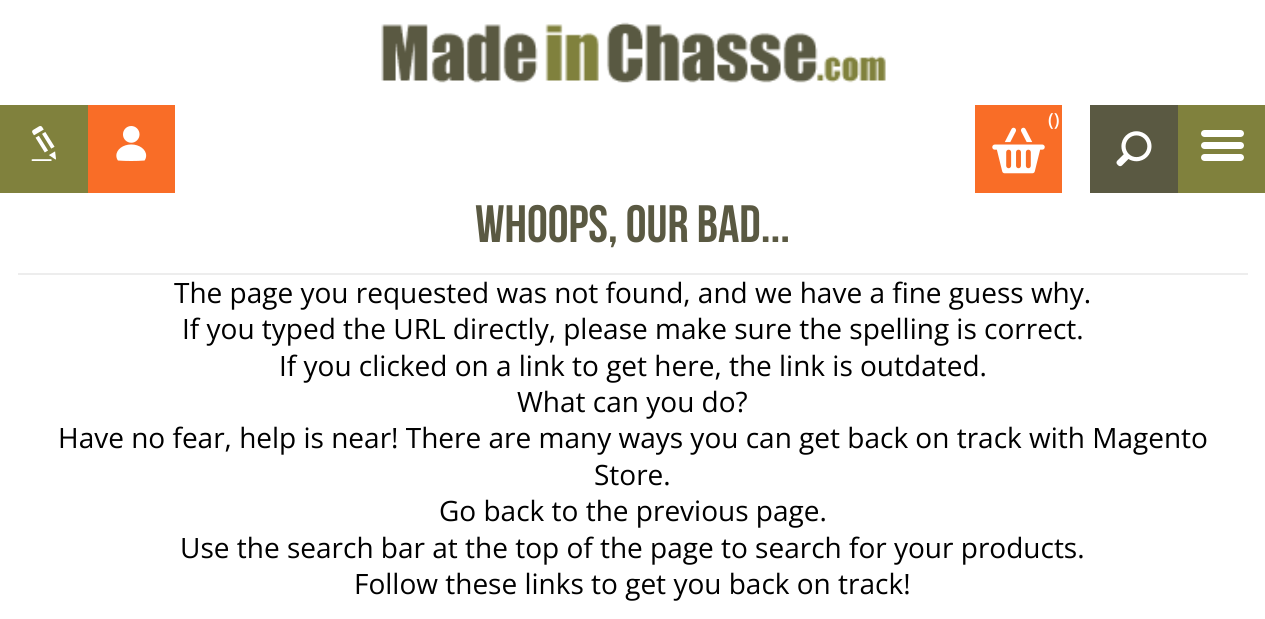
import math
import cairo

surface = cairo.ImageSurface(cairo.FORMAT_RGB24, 1265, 619)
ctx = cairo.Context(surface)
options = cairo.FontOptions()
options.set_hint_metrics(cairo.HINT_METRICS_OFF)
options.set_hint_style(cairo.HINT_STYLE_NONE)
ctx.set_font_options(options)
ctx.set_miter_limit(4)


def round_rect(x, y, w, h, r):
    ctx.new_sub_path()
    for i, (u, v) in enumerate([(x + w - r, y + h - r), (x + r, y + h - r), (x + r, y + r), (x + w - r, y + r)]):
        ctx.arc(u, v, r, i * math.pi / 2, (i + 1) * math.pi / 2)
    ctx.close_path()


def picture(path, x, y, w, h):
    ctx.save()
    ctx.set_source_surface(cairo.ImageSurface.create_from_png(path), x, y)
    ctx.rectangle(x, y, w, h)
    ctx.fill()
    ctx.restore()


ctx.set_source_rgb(1, 1, 1)
ctx.paint()
picture("img1.png", 381, 22, 505, 61)
ctx.set_source_rgb(0.502, 0.506, 0.239)
ctx.rectangle(0, 105, 88, 88)
ctx.fill()
picture("img2.png", 31, 126, 25, 35)
ctx.set_source_rgb(0.976, 0.427, 0.153)
ctx.rectangle(88, 105, 87, 88)
ctx.fill()
picture("img3.png", 116, 126, 31, 35)
ctx.rectangle(975, 105, 87, 88)
ctx.fill()
picture("img4.png", 992, 127, 53, 47)
ctx.select_font_face("Open Sans SemiBold")
ctx.set_font_size(18)
ctx.set_source_rgb(1, 1, 1)
ctx.move_to(1048, 126)
ctx.show_text("()")
ctx.set_source_rgb(0.353, 0.349, 0.259)
ctx.rectangle(1090, 105, 88, 88)
ctx.fill()
picture("img5.png", 1116, 131, 36, 36)
ctx.set_source_rgb(0.502, 0.506, 0.239)
ctx.rectangle(1178, 105, 87, 88)
ctx.fill()
ctx.set_source_rgb(1, 1, 1)
round_rect(1201, 142, 43, 7, 3.5)
ctx.fill()
round_rect(1201, 130, 43, 7, 3.5)
ctx.fill()
round_rect(1201, 154, 43, 7, 3.5)
ctx.fill()
ctx.set_source_rgb(0.929, 0.929, 0.929)
ctx.rectangle(18, 273, 1230, 2)
ctx.fill()
ctx.select_font_face("Bebas Neue")
ctx.set_font_size(52.5)
ctx.set_source_rgb(0.353, 0.349, 0.259)
ctx.move_to(475, 242)
ctx.show_text("WHOOPS, OUR BAD...")
ctx.select_font_face("Open Sans")
ctx.set_font_size(28)
ctx.set_source_rgb(0, 0, 0)
ctx.move_to(174, 303)
ctx.show_text("The page you requested was not found, and we have a fine guess why.")
ctx.move_to(182, 339)
ctx.show_text("If you typed the URL directly, please make sure the spelling is correct.")
ctx.move_to(279, 376)
ctx.show_text("If you clicked on a link to get here, the link is outdated.")
ctx.move_to(517, 412)
ctx.show_text("What can you do?")
ctx.move_to(58, 448)
ctx.show_text("Have no fear, help is near! There are many ways you can get back on track with Magento")
ctx.move_to(594, 485)
ctx.show_text("Store.")
ctx.move_to(439, 521)
ctx.show_text("Go back to the previous page.")
ctx.move_to(180, 558)
ctx.show_text("Use the search bar at the top of the page to search for your products.")
ctx.move_to(354, 594)
ctx.show_text("Follow these links to get you back on track!")
surface.write_to_png("page.png")
